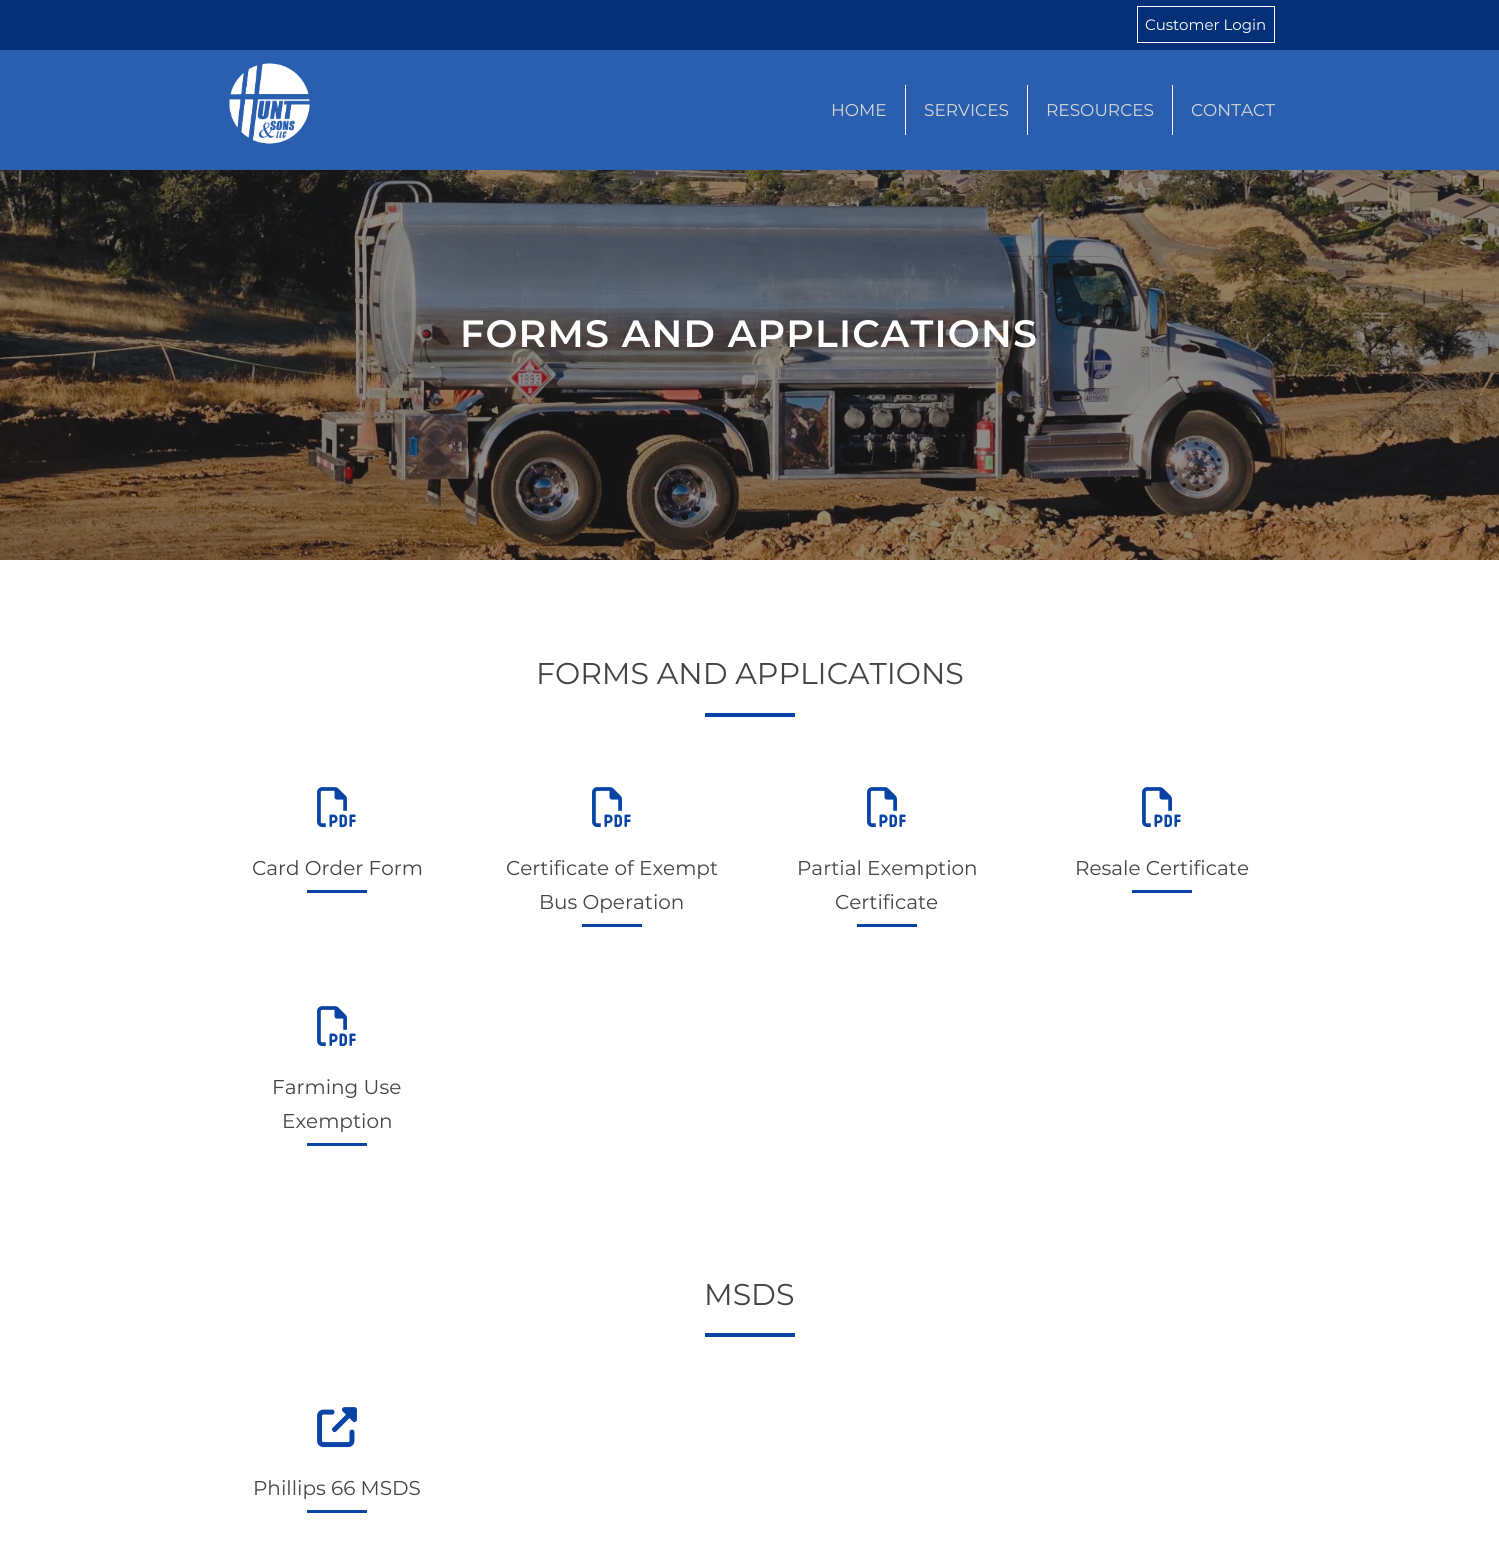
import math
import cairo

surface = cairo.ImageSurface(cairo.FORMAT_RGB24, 1499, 1555)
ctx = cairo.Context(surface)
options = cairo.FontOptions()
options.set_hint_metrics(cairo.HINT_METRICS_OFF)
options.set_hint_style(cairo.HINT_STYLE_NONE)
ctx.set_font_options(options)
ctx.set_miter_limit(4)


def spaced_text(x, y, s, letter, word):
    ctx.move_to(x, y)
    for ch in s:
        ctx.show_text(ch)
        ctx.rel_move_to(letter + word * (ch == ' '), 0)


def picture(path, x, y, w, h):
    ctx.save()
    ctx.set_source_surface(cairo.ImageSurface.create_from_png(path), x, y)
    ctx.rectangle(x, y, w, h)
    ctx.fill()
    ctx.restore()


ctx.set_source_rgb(1, 1, 1)
ctx.paint()
ctx.set_source_rgb(0.165, 0.373, 0.69)
ctx.rectangle(0, 50, 1499, 120)
ctx.fill()
picture("img1.png", 229, 63, 81, 81)
ctx.set_source_rgb(0.012, 0.188, 0.463)
ctx.rectangle(0, 0, 1499, 50)
ctx.fill()
ctx.rectangle(1137.5, 6.5, 137, 36)
ctx.set_source_rgb(1, 1, 1)
ctx.set_line_width(1)
ctx.stroke()
ctx.select_font_face("Montserrat")
ctx.set_font_size(15)
ctx.move_to(1145, 30)
ctx.show_text("Customer Login")
ctx.set_font_size(17)
ctx.set_source_rgb(0.843, 0.843, 0.843)
ctx.move_to(831, 116)
ctx.show_text("HOME")
ctx.set_source_rgb(1, 1, 1)
ctx.rectangle(905, 85, 1, 50)
ctx.fill()
ctx.set_source_rgb(0.843, 0.843, 0.843)
ctx.move_to(924, 116)
ctx.show_text("SERVICES")
ctx.set_source_rgb(1, 1, 1)
ctx.rectangle(1027, 85, 1, 50)
ctx.fill()
ctx.set_source_rgb(0.843, 0.843, 0.843)
ctx.move_to(1046, 116)
ctx.show_text("RESOURCES")
ctx.set_source_rgb(1, 1, 1)
ctx.rectangle(1172, 85, 1, 50)
ctx.fill()
ctx.set_source_rgb(0.843, 0.843, 0.843)
ctx.move_to(1191, 116)
ctx.show_text("CONTACT")
picture("img2.png", 0, 170, 1499, 390)
ctx.select_font_face("Montserrat SemiBold")
ctx.set_font_size(38)
ctx.set_source_rgb(1, 1, 1)
spaced_text(460, 347, "FORMS AND APPLICATIONS", 1.2, 0)
ctx.select_font_face("Montserrat")
ctx.set_font_size(30)
ctx.set_source_rgb(0.267, 0.267, 0.267)
ctx.move_to(536, 684)
ctx.show_text("FORMS AND APPLICATIONS")
ctx.set_source_rgb(0.031, 0.267, 0.643)
ctx.rectangle(705, 713, 90, 4)
ctx.fill()
picture("img3.png", 317, 787, 39, 41)
ctx.set_font_size(20)
ctx.set_source_rgb(0.267, 0.267, 0.267)
ctx.move_to(252, 875)
ctx.show_text("Card Order Form")
ctx.set_source_rgb(0.031, 0.267, 0.643)
ctx.rectangle(307, 890, 60, 3)
ctx.fill()
picture("img3.png", 592, 787, 39, 41)
ctx.set_source_rgb(0.267, 0.267, 0.267)
ctx.move_to(506, 875)
ctx.show_text("Certificate of Exempt")
ctx.move_to(539, 909)
ctx.show_text("Bus Operation")
ctx.set_source_rgb(0.031, 0.267, 0.643)
ctx.rectangle(582, 924, 60, 3)
ctx.fill()
picture("img3.png", 867, 787, 39, 41)
ctx.set_source_rgb(0.267, 0.267, 0.267)
ctx.move_to(797, 875)
ctx.show_text("Partial Exemption")
ctx.move_to(835, 909)
ctx.show_text("Certificate")
ctx.set_source_rgb(0.031, 0.267, 0.643)
ctx.rectangle(857, 924, 60, 3)
ctx.fill()
picture("img3.png", 1142, 787, 39, 41)
ctx.set_source_rgb(0.267, 0.267, 0.267)
ctx.move_to(1075, 875)
ctx.show_text("Resale Certificate")
ctx.set_source_rgb(0.031, 0.267, 0.643)
ctx.rectangle(1132, 890, 60, 3)
ctx.fill()
picture("img3.png", 317, 1006, 39, 41)
ctx.set_source_rgb(0.267, 0.267, 0.267)
ctx.move_to(272, 1094)
ctx.show_text("Farming Use")
ctx.move_to(282, 1128)
ctx.show_text("Exemption")
ctx.set_source_rgb(0.031, 0.267, 0.643)
ctx.rectangle(307, 1143, 60, 3)
ctx.fill()
ctx.set_font_size(30)
ctx.set_source_rgb(0.267, 0.267, 0.267)
ctx.move_to(704, 1305)
ctx.show_text("MSDS")
ctx.set_source_rgb(0.031, 0.267, 0.643)
ctx.rectangle(705, 1333, 90, 4)
ctx.fill()
picture("img4.png", 317, 1407, 40, 41)
ctx.set_font_size(20)
ctx.set_source_rgb(0.267, 0.267, 0.267)
ctx.move_to(253, 1495)
ctx.show_text("Phillips 66 MSDS")
ctx.set_source_rgb(0.031, 0.267, 0.643)
ctx.rectangle(307, 1510, 60, 3)
ctx.fill()
surface.write_to_png("page.png")
